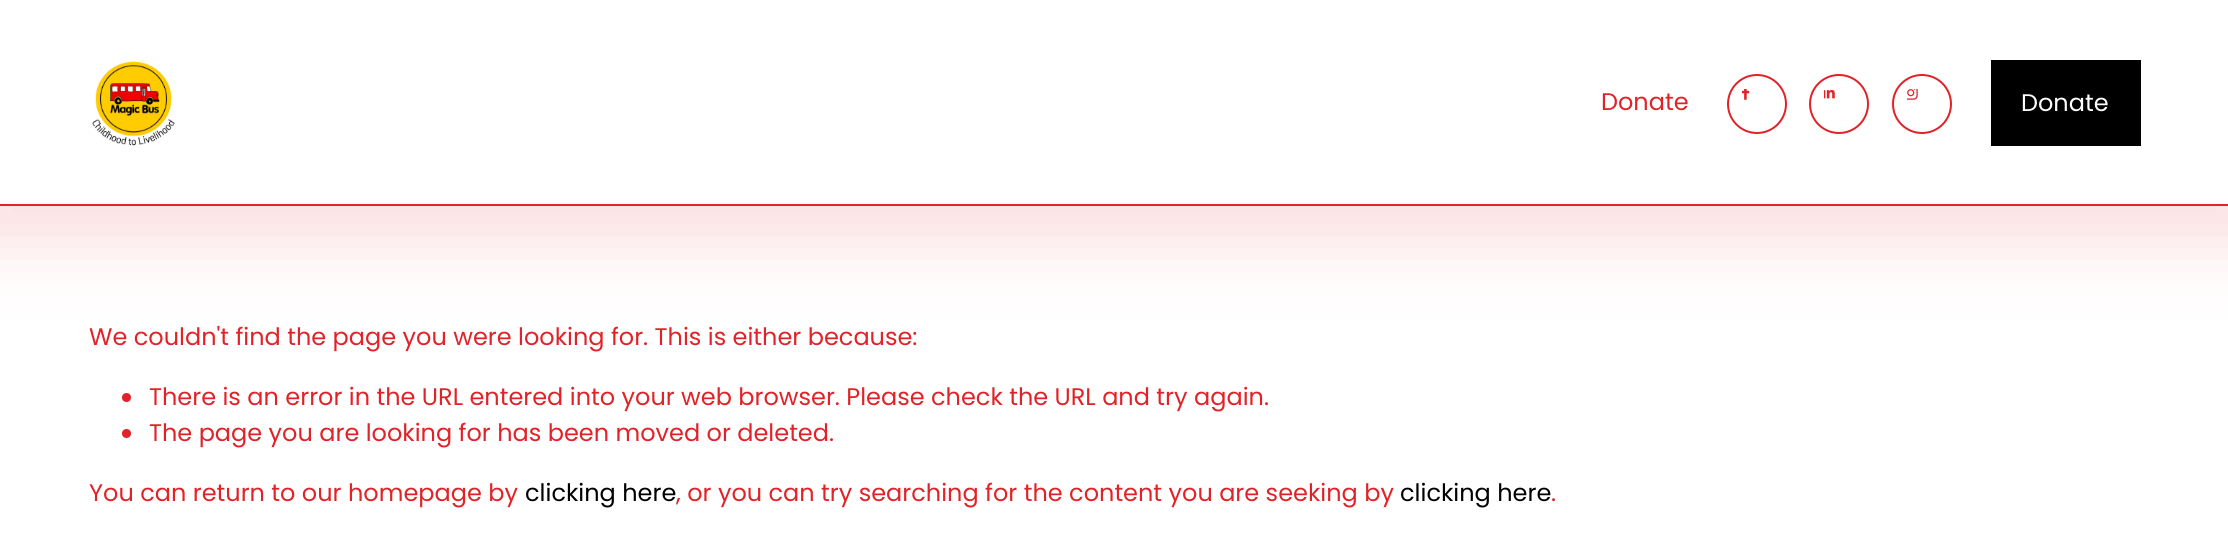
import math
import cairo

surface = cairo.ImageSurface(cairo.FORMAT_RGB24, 2228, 541)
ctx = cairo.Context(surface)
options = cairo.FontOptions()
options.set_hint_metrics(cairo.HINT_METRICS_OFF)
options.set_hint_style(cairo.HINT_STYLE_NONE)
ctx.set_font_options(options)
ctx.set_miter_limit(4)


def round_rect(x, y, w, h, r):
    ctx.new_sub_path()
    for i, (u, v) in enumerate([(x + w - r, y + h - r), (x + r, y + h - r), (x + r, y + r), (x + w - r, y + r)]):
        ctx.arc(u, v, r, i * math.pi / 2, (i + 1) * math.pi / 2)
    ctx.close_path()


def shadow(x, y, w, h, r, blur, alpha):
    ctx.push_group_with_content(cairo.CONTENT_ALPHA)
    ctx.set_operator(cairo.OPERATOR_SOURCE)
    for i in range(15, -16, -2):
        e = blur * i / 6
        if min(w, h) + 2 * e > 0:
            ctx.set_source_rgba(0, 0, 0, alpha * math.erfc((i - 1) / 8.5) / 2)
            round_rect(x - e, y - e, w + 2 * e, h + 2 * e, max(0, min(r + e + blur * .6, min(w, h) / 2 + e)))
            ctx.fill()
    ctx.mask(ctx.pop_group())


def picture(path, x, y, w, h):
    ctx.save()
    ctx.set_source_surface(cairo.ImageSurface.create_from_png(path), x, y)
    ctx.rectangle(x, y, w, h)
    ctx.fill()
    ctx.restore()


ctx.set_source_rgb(1, 1, 1)
ctx.paint()
ctx.set_source_rgb(0.984, 0.871, 0.875)
shadow(-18, 0, 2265, 242, 0, 36, 1)
ctx.set_source_rgb(1, 1, 1)
ctx.rectangle(0, 0, 2228, 204)
ctx.fill()
picture("img1.png", 92, 61, 83, 85)
ctx.select_font_face("Poppins")
ctx.set_font_size(24)
ctx.set_source_rgb(0.882, 0.133, 0.157)
ctx.move_to(1601, 110)
ctx.show_text("Donate")
ctx.new_path()
ctx.arc(1757, 104, 29, 0, 2 * math.pi)
ctx.stroke()
picture("img2.png", 1742, 89, 8, 11)
ctx.arc(1839, 104, 29, 0, 2 * math.pi)
ctx.stroke()
picture("img3.png", 1824, 90, 11, 9)
ctx.arc(1922, 104, 29, 0, 2 * math.pi)
ctx.stroke()
picture("img4.png", 1907, 89, 11, 11)
ctx.set_source_rgb(0, 0, 0)
ctx.rectangle(1991, 60, 150, 86)
ctx.fill()
ctx.set_source_rgb(1, 1, 1)
ctx.move_to(2021, 111)
ctx.show_text("Donate")
ctx.set_source_rgb(0.882, 0.133, 0.157)
ctx.rectangle(0, 204, 2228, 2)
ctx.fill()
ctx.move_to(89, 345)
ctx.show_text("We couldn't find the page you were looking for. This is either because:")
ctx.new_path()
ctx.arc(126.5, 397.5, 4.5, 0, 2 * math.pi)
ctx.fill()
ctx.move_to(149, 405)
ctx.show_text("There is an error in the URL entered into your web browser. Please check the URL and try again.")
ctx.new_path()
ctx.arc(126.5, 433.5, 4.5, 0, 2 * math.pi)
ctx.fill()
ctx.move_to(149, 441)
ctx.show_text("The page you are looking for has been moved or deleted.")
ctx.move_to(89, 501)
ctx.show_text("You can return to our homepage by")
ctx.set_source_rgb(0, 0, 0)
ctx.move_to(525, 501)
ctx.show_text("clicking here")
ctx.set_source_rgb(0.882, 0.133, 0.157)
ctx.move_to(676, 501)
ctx.show_text(", or you can try searching for the content you are seeking by")
ctx.set_source_rgb(0, 0, 0)
ctx.move_to(1400, 501)
ctx.show_text("clicking here")
ctx.set_source_rgb(0.882, 0.133, 0.157)
ctx.move_to(1551, 501)
ctx.show_text(".")
surface.write_to_png("page.png")
